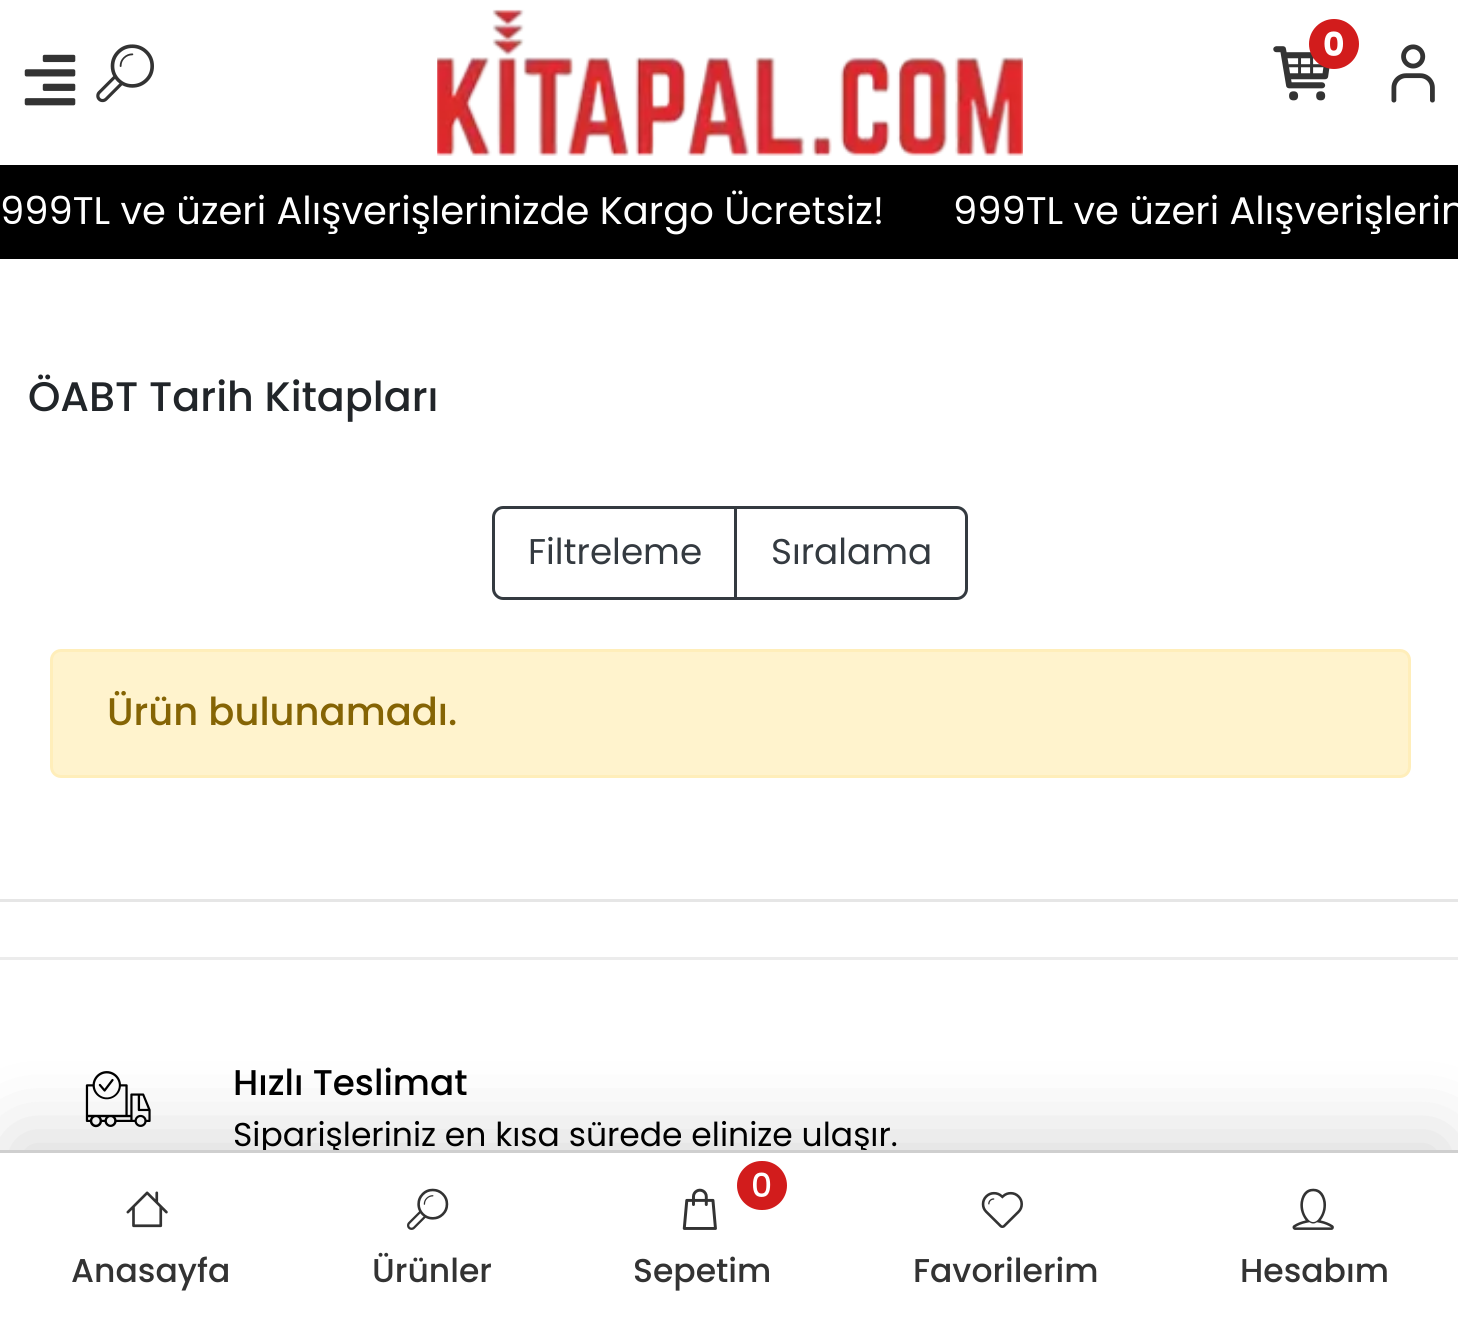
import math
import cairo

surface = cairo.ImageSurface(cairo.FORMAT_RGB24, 1458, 1326)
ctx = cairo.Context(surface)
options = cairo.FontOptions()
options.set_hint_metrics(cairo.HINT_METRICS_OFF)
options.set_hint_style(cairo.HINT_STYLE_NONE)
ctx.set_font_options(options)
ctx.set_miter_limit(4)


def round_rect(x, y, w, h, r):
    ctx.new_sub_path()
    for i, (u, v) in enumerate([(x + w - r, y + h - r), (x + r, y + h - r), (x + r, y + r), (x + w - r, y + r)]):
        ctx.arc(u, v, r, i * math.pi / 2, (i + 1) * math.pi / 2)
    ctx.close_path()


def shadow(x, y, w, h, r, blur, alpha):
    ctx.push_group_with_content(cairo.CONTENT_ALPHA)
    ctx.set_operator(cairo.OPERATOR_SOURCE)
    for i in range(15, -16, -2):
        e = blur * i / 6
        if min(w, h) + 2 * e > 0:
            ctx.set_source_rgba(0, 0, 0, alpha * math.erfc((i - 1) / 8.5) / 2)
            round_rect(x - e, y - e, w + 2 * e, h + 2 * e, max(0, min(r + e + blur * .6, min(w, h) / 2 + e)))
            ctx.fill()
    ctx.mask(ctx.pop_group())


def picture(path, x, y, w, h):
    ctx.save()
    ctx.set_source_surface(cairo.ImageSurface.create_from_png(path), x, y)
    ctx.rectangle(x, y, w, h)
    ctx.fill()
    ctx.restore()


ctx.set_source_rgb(1, 1, 1)
ctx.paint()
picture("img1.png", 24, 54, 52, 52)
picture("img2.png", 96, 44, 58, 59)
picture("img3.png", 437, 9, 586, 147)
picture("img4.png", 1273, 46, 57, 55)
ctx.set_source_rgb(0.824, 0.11, 0.11)
ctx.arc(1334, 44, 25, 0, 2 * math.pi)
ctx.fill()
ctx.select_font_face("Poppins", cairo.FONT_SLANT_NORMAL, cairo.FONT_WEIGHT_BOLD)
ctx.set_font_size(33)
ctx.set_source_rgb(1, 1, 1)
ctx.move_to(1323, 56)
ctx.show_text("0")
picture("img5.png", 1391, 44, 44, 59)
ctx.set_source_rgb(0, 0, 0)
ctx.rectangle(0, 165, 1458, 94)
ctx.fill()
ctx.select_font_face("Poppins")
ctx.set_font_size(38.5)
ctx.set_source_rgb(1, 1, 1)
ctx.move_to(0, 224)
ctx.show_text("999TL ve üzeri Alışverişlerinizde Kargo Ücretsiz!")
ctx.move_to(953, 224)
ctx.show_text("999TL ve üzeri Alışverişlerin")
ctx.select_font_face("Poppins Medium")
ctx.set_font_size(41.25)
ctx.set_source_rgb(0.129, 0.145, 0.161)
ctx.move_to(28, 411)
ctx.show_text("ÖABT Tarih Kitapları")
ctx.new_path()
ctx.move_to(503, 507.5)
ctx.line_to(735.5, 507.5)
ctx.line_to(735.5, 598.5)
ctx.line_to(503, 598.5)
ctx.curve_to(498, 598.5, 493.5, 594, 493.5, 589)
ctx.line_to(493.5, 517)
ctx.curve_to(493.5, 512, 498, 507.5, 503, 507.5)
ctx.close_path()
ctx.set_source_rgb(0.204, 0.227, 0.251)
ctx.set_line_width(3)
ctx.stroke()
ctx.select_font_face("Poppins")
ctx.set_font_size(35.75)
ctx.move_to(528, 564)
ctx.show_text("Filtreleme")
ctx.new_path()
ctx.move_to(735.5, 507.5)
ctx.line_to(957, 507.5)
ctx.curve_to(962, 507.5, 966.5, 512, 966.5, 517)
ctx.line_to(966.5, 589)
ctx.curve_to(966.5, 594, 962, 598.5, 957, 598.5)
ctx.line_to(735.5, 598.5)
ctx.close_path()
ctx.stroke()
ctx.move_to(771, 564)
ctx.show_text("Sıralama")
ctx.set_source_rgb(1, 0.953, 0.804)
round_rect(51.5, 650.5, 1358, 126, 9.5)
ctx.fill_preserve()
ctx.set_source_rgb(1, 0.933, 0.729)
ctx.stroke()
ctx.select_font_face("Poppins Medium")
ctx.set_font_size(38.5)
ctx.set_source_rgb(0.522, 0.392, 0.016)
ctx.move_to(107, 725)
ctx.show_text("Ürün bulunamadı.")
ctx.set_source_rgb(0.902, 0.902, 0.902)
ctx.rectangle(0, 899, 1458, 3)
ctx.fill()
ctx.set_source_rgb(0.922, 0.922, 0.922)
ctx.rectangle(0, 957, 1458, 3)
ctx.fill()
picture("img6.png", 85, 1071, 66, 57)
ctx.set_font_size(35.75)
ctx.set_source_rgb(0, 0, 0)
ctx.move_to(233, 1095)
ctx.show_text("Hızlı Teslimat")
ctx.select_font_face("Poppins")
ctx.set_font_size(33)
ctx.move_to(233, 1146)
ctx.show_text("Siparişleriniz en kısa sürede elinize ulaşır.")
ctx.set_source_rgb(0, 0, 0)
shadow(14, 1136, 1433, 151, 0, 41, 0.15)
ctx.set_source_rgb(1, 1, 1)
ctx.rectangle(0, 1153, 1458, 173)
ctx.fill()
ctx.set_source_rgb(0.812, 0.812, 0.812)
ctx.rectangle(0, 1150, 1458, 3)
ctx.fill()
picture("img7.png", 126, 1191, 42, 37)
ctx.select_font_face("Poppins Medium")
ctx.set_source_rgb(0.2, 0.2, 0.2)
ctx.move_to(71, 1282)
ctx.show_text("Anasayfa")
picture("img8.png", 407, 1188, 42, 42)
ctx.move_to(372, 1282)
ctx.show_text("Ürünler")
ctx.set_source_rgb(0.824, 0.11, 0.11)
round_rect(737, 1161, 50, 49, 24.5)
ctx.fill()
ctx.set_source_rgb(1, 1, 1)
ctx.move_to(751, 1197)
ctx.show_text("0")
picture("img9.png", 682, 1188, 35, 42)
ctx.set_source_rgb(0.2, 0.2, 0.2)
ctx.move_to(633, 1282)
ctx.show_text("Sepetim")
picture("img10.png", 981, 1191, 42, 37)
ctx.move_to(913, 1282)
ctx.show_text("Favorilerim")
picture("img11.png", 1292, 1188, 42, 42)
ctx.move_to(1240, 1282)
ctx.show_text("Hesabım")
surface.write_to_png("page.png")
